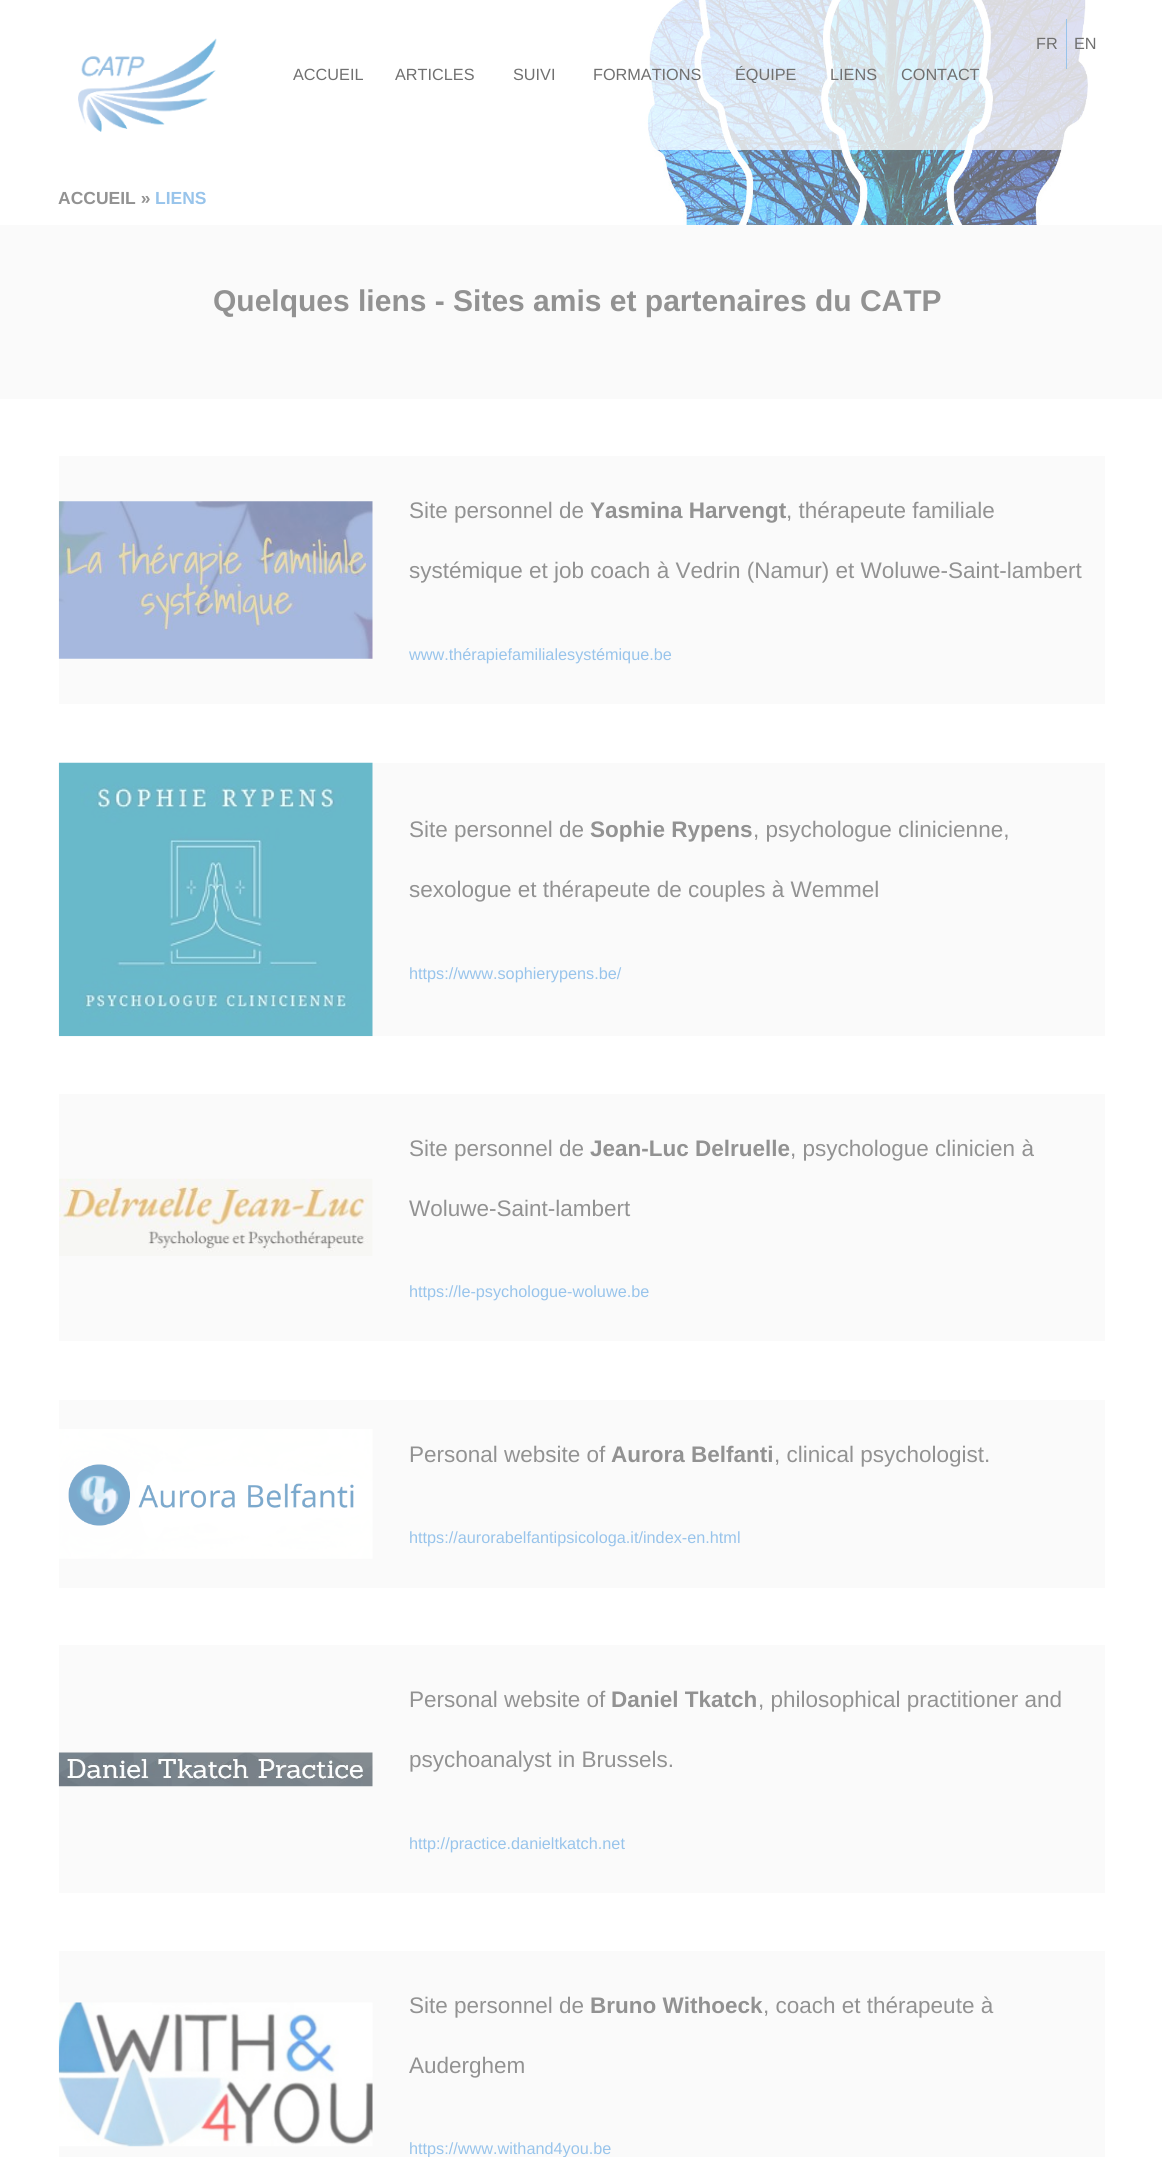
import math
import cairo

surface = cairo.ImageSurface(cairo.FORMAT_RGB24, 1162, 2157)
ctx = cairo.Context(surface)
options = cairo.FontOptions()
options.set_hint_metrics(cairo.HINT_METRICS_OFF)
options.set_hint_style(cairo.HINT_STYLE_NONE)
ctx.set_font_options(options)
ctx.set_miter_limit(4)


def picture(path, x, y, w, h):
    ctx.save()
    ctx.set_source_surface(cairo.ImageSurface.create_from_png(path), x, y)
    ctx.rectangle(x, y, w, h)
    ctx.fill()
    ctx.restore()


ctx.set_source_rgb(1, 1, 1)
ctx.paint()
picture("img2.png", 644, 0, 446, 225)
ctx.set_source_rgba(1, 1, 1, 0.75)
ctx.rectangle(644, 0, 446, 150)
ctx.fill()
picture("img1.png", 78, 38, 139, 94)
ctx.select_font_face("Liberation Sans")
ctx.set_font_size(16.25)
ctx.set_source_rgb(0.439, 0.439, 0.439)
ctx.move_to(293, 80)
ctx.show_text("ACCUEIL")
ctx.move_to(395, 80)
ctx.show_text("ARTICLES")
ctx.move_to(513, 80)
ctx.show_text("SUIVI")
ctx.move_to(593, 80)
ctx.show_text("FORMATIONS")
ctx.move_to(735, 80)
ctx.show_text("ÉQUIPE")
ctx.move_to(830, 80)
ctx.show_text("LIENS")
ctx.move_to(901, 80)
ctx.show_text("CONTACT")
ctx.set_source_rgb(0.596, 0.769, 0.918)
ctx.rectangle(1066, 19, 1, 50)
ctx.fill()
ctx.set_source_rgb(0.439, 0.439, 0.439)
ctx.move_to(1036, 49)
ctx.show_text("FR")
ctx.move_to(1074, 49)
ctx.show_text("EN")
ctx.select_font_face("Liberation Sans", cairo.FONT_SLANT_NORMAL, cairo.FONT_WEIGHT_BOLD)
ctx.set_font_size(17.5)
ctx.set_source_rgb(0.573, 0.573, 0.573)
ctx.move_to(58, 204)
ctx.show_text("ACCUEIL »")
ctx.set_source_rgb(0.596, 0.769, 0.918)
ctx.move_to(155, 204)
ctx.show_text("LIENS")
ctx.set_source_rgb(0.98, 0.98, 0.98)
ctx.rectangle(0, 225, 1162, 174)
ctx.fill()
ctx.set_font_size(30)
ctx.set_source_rgb(0.573, 0.573, 0.573)
ctx.move_to(213, 311)
ctx.show_text("Quelques liens - Sites amis et partenaires du CATP")
ctx.set_source_rgb(0.98, 0.98, 0.98)
ctx.rectangle(59, 456, 1046, 248)
ctx.fill()
picture("img3.png", 58, 501, 315, 158)
ctx.select_font_face("Liberation Sans")
ctx.set_font_size(22.5)
ctx.set_source_rgb(0.573, 0.573, 0.573)
ctx.move_to(409, 518)
ctx.show_text("Site personnel de")
ctx.select_font_face("Liberation Sans", cairo.FONT_SLANT_NORMAL, cairo.FONT_WEIGHT_BOLD)
ctx.move_to(590, 518)
ctx.show_text("Yasmina Harvengt")
ctx.select_font_face("Liberation Sans")
ctx.move_to(786, 518)
ctx.show_text(", thérapeute familiale")
ctx.move_to(409, 578)
ctx.show_text("systémique et job coach à Vedrin (Namur) et Woluwe-Saint-lambert")
ctx.set_font_size(16.25)
ctx.set_source_rgb(0.596, 0.769, 0.918)
ctx.move_to(409, 660)
ctx.show_text("www.thérapiefamilialesystémique.be")
ctx.set_source_rgb(0.98, 0.98, 0.98)
ctx.rectangle(372, 763, 733, 273)
ctx.fill()
picture("img4.png", 58, 762, 315, 275)
ctx.set_font_size(22.5)
ctx.set_source_rgb(0.573, 0.573, 0.573)
ctx.move_to(409, 837)
ctx.show_text("Site personnel de")
ctx.select_font_face("Liberation Sans", cairo.FONT_SLANT_NORMAL, cairo.FONT_WEIGHT_BOLD)
ctx.move_to(590, 837)
ctx.show_text("Sophie Rypens")
ctx.select_font_face("Liberation Sans")
ctx.move_to(753, 837)
ctx.show_text(", psychologue clinicienne,")
ctx.move_to(409, 897)
ctx.show_text("sexologue et thérapeute de couples à Wemmel")
ctx.set_font_size(16.25)
ctx.set_source_rgb(0.596, 0.769, 0.918)
ctx.move_to(409, 979)
ctx.show_text("https://www.sophierypens.be/")
ctx.set_source_rgb(0.98, 0.98, 0.98)
ctx.rectangle(59, 1094, 1046, 247)
ctx.fill()
picture("img5.png", 59, 1178, 314, 78)
ctx.set_font_size(22.5)
ctx.set_source_rgb(0.573, 0.573, 0.573)
ctx.move_to(409, 1156)
ctx.show_text("Site personnel de")
ctx.select_font_face("Liberation Sans", cairo.FONT_SLANT_NORMAL, cairo.FONT_WEIGHT_BOLD)
ctx.move_to(590, 1156)
ctx.show_text("Jean-Luc Delruelle")
ctx.select_font_face("Liberation Sans")
ctx.move_to(790, 1156)
ctx.show_text(", psychologue clinicien à")
ctx.move_to(409, 1216)
ctx.show_text("Woluwe-Saint-lambert")
ctx.set_font_size(16.25)
ctx.set_source_rgb(0.596, 0.769, 0.918)
ctx.move_to(409, 1297)
ctx.show_text("https://le-psychologue-woluwe.be")
ctx.set_source_rgb(0.98, 0.98, 0.98)
ctx.rectangle(59, 1400, 1046, 188)
ctx.fill()
picture("img6.png", 59, 1429, 314, 130)
ctx.set_font_size(22.5)
ctx.set_source_rgb(0.573, 0.573, 0.573)
ctx.move_to(409, 1462)
ctx.show_text("Personal website of")
ctx.select_font_face("Liberation Sans", cairo.FONT_SLANT_NORMAL, cairo.FONT_WEIGHT_BOLD)
ctx.move_to(611, 1462)
ctx.show_text("Aurora Belfanti")
ctx.select_font_face("Liberation Sans")
ctx.move_to(774, 1462)
ctx.show_text(", clinical psychologist.")
ctx.set_font_size(16.25)
ctx.set_source_rgb(0.596, 0.769, 0.918)
ctx.move_to(409, 1543)
ctx.show_text("https://aurorabelfantipsicologa.it/index-en.html")
ctx.set_source_rgb(0.98, 0.98, 0.98)
ctx.rectangle(59, 1645, 1046, 248)
ctx.fill()
picture("img7.png", 58, 1752, 315, 35)
ctx.set_font_size(22.5)
ctx.set_source_rgb(0.573, 0.573, 0.573)
ctx.move_to(409, 1707)
ctx.show_text("Personal website of")
ctx.select_font_face("Liberation Sans", cairo.FONT_SLANT_NORMAL, cairo.FONT_WEIGHT_BOLD)
ctx.move_to(611, 1707)
ctx.show_text("Daniel Tkatch")
ctx.select_font_face("Liberation Sans")
ctx.move_to(758, 1707)
ctx.show_text(", philosophical practitioner and")
ctx.move_to(409, 1767)
ctx.show_text("psychoanalyst in Brussels.")
ctx.set_font_size(16.25)
ctx.set_source_rgb(0.596, 0.769, 0.918)
ctx.move_to(409, 1849)
ctx.show_text("http://practice.danieltkatch.net")
ctx.set_source_rgb(0.98, 0.98, 0.98)
ctx.rectangle(59, 1951, 1046, 206)
ctx.fill()
picture("img8.png", 58, 2002, 315, 145)
ctx.set_font_size(22.5)
ctx.set_source_rgb(0.573, 0.573, 0.573)
ctx.move_to(409, 2013)
ctx.show_text("Site personnel de")
ctx.select_font_face("Liberation Sans", cairo.FONT_SLANT_NORMAL, cairo.FONT_WEIGHT_BOLD)
ctx.move_to(590, 2013)
ctx.show_text("Bruno Withoeck")
ctx.select_font_face("Liberation Sans")
ctx.move_to(763, 2013)
ctx.show_text(", coach et thérapeute à")
ctx.move_to(409, 2073)
ctx.show_text("Auderghem")
ctx.set_font_size(16.25)
ctx.set_source_rgb(0.596, 0.769, 0.918)
ctx.move_to(409, 2154)
ctx.show_text("https://www.withand4you.be")
surface.write_to_png("page.png")
